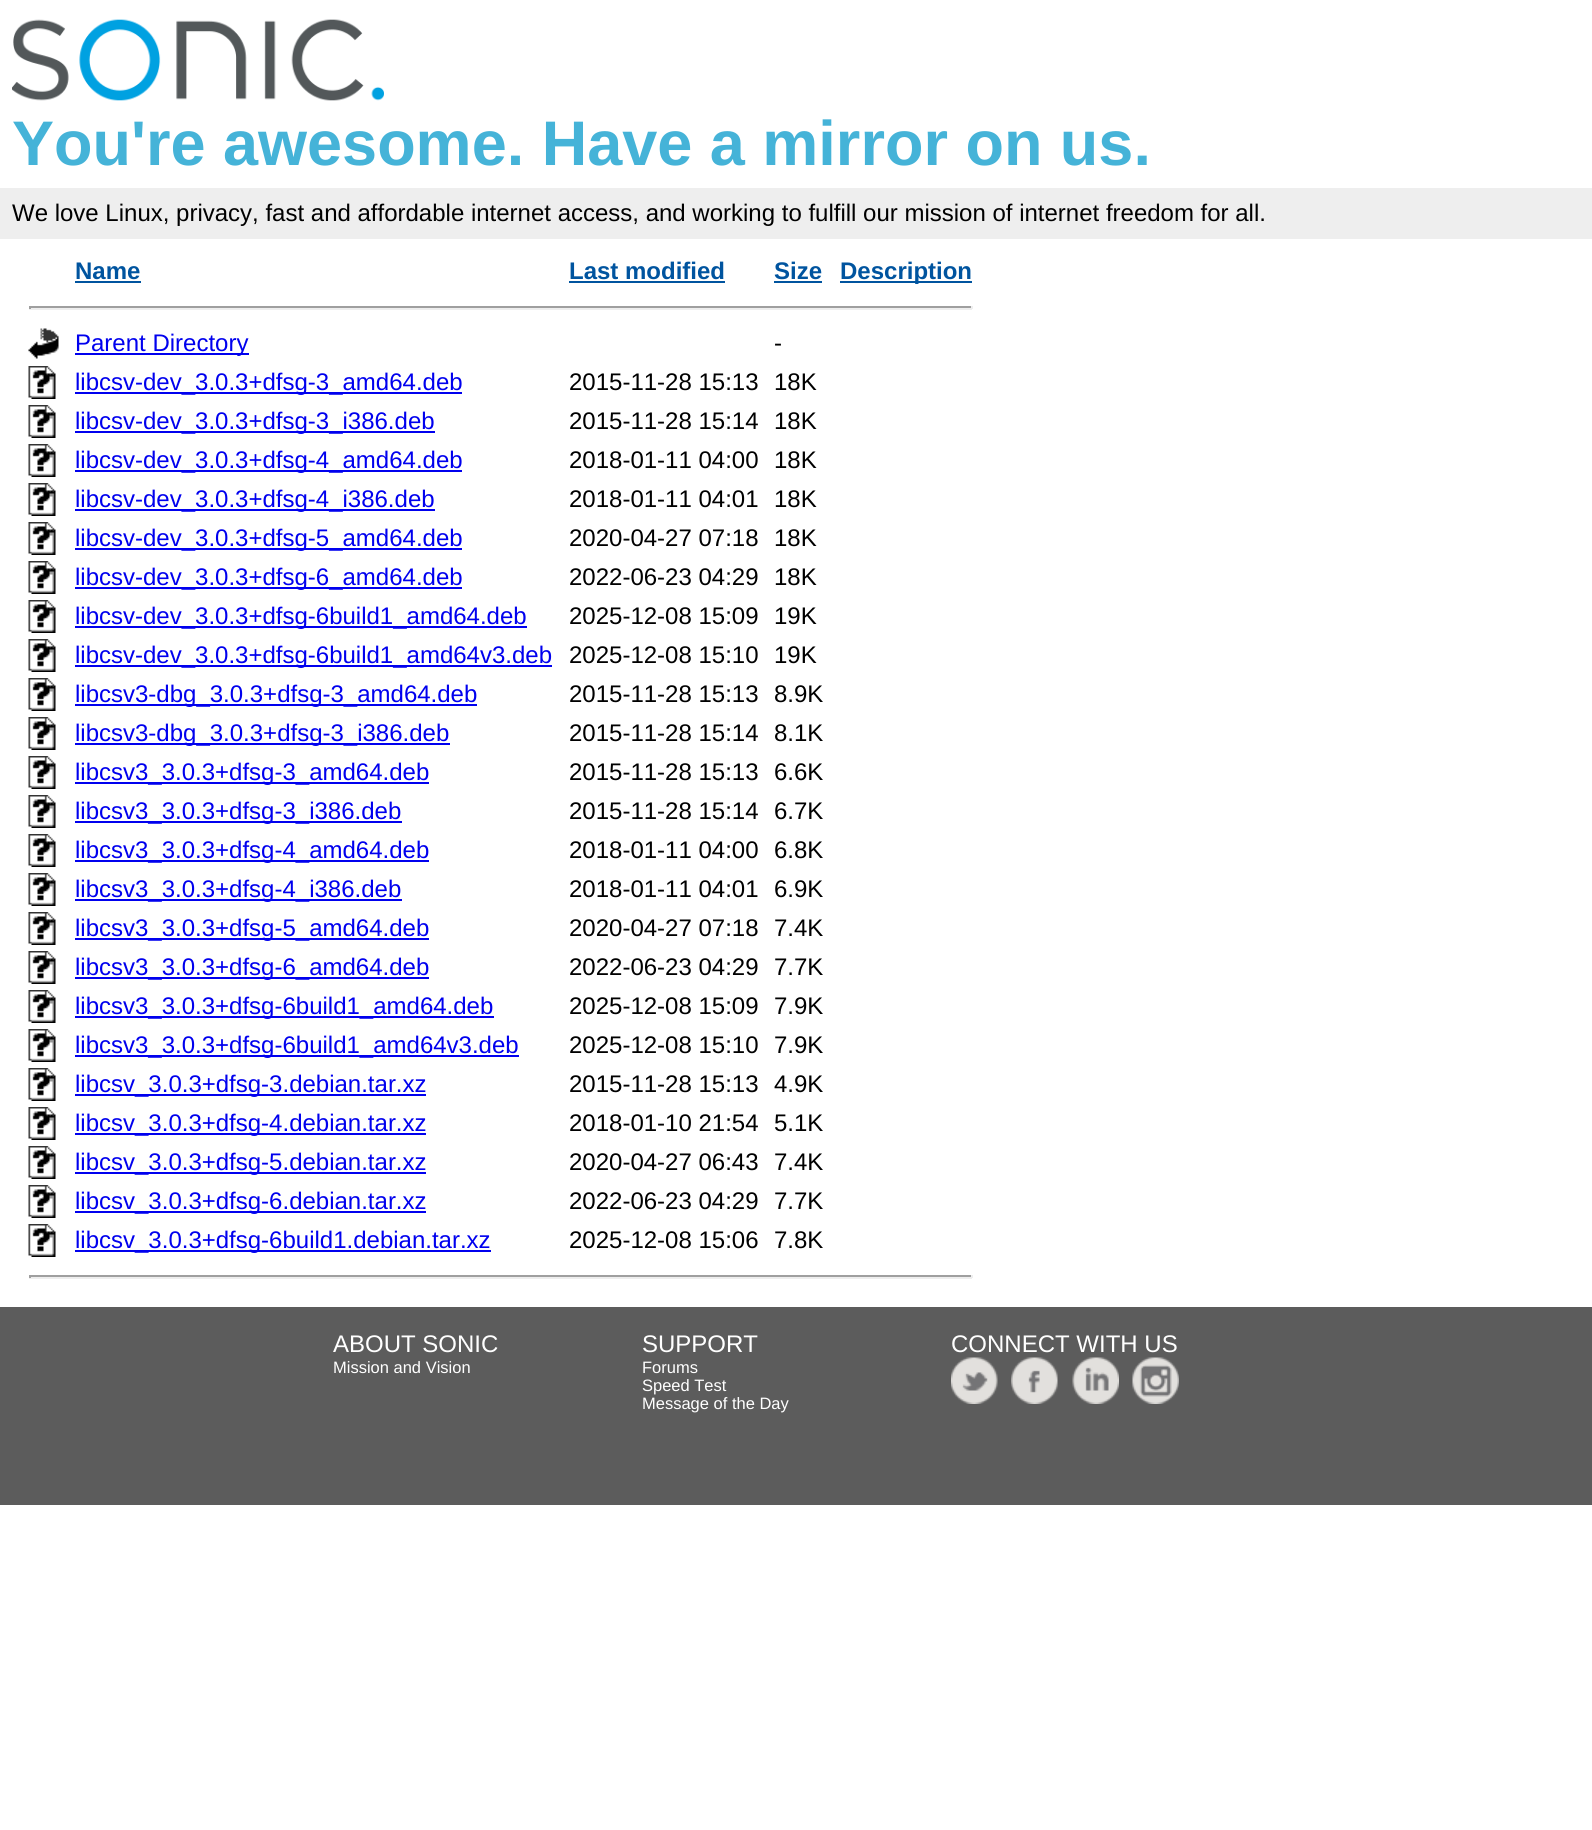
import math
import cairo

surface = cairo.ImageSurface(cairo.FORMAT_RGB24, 1592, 1830)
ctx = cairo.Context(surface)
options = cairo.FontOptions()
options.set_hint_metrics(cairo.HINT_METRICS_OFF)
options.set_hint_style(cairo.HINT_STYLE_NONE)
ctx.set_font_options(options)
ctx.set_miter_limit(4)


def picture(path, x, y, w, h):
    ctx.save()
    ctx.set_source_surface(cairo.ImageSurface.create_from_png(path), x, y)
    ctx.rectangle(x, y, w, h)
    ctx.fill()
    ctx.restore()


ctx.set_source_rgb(1, 1, 1)
ctx.paint()
picture("img1.png", 12, 19, 372, 82)
ctx.select_font_face("Liberation Sans", cairo.FONT_SLANT_NORMAL, cairo.FONT_WEIGHT_BOLD)
ctx.set_font_size(63)
ctx.set_source_rgb(0.271, 0.702, 0.847)
ctx.move_to(12, 165)
ctx.show_text("You're awesome. Have a mirror on us.")
ctx.set_source_rgb(0.933, 0.933, 0.933)
ctx.rectangle(0, 188, 1592, 51)
ctx.fill()
ctx.select_font_face("Liberation Sans")
ctx.set_font_size(24)
ctx.set_source_rgb(0, 0, 0)
ctx.move_to(12, 221)
ctx.show_text("We love Linux, privacy, fast and affordable internet access, and working to fulfill our mission of internet freedom for all.")
ctx.select_font_face("Liberation Sans", cairo.FONT_SLANT_NORMAL, cairo.FONT_WEIGHT_BOLD)
ctx.set_source_rgb(0, 0.329, 0.624)
ctx.move_to(75, 279)
ctx.show_text("Name")
ctx.rectangle(75, 281, 66, 2)
ctx.fill()
ctx.move_to(569, 279)
ctx.show_text("Last modified")
ctx.rectangle(569, 281, 156, 2)
ctx.fill()
ctx.move_to(774, 279)
ctx.show_text("Size")
ctx.rectangle(774, 281, 48, 2)
ctx.fill()
ctx.rectangle(840, 281, 132, 2)
ctx.fill()
ctx.move_to(840, 279)
ctx.show_text("Description")
ctx.set_source_rgb(0.624, 0.624, 0.624)
ctx.rectangle(29, 306, 943, 2)
ctx.fill()
ctx.set_source_rgb(0.933, 0.933, 0.933)
ctx.rectangle(971, 306, 2, 3)
ctx.fill()
ctx.rectangle(29, 308, 943, 2)
ctx.fill()
ctx.set_source_rgb(0.624, 0.624, 0.624)
ctx.rectangle(29, 306, 2, 3)
ctx.fill()
picture("img2.png", 28, 328, 31, 31)
ctx.set_source_rgb(0, 0, 0.933)
ctx.rectangle(75, 353, 174, 2)
ctx.fill()
ctx.select_font_face("Liberation Sans")
ctx.move_to(75, 351)
ctx.show_text("Parent Directory")
ctx.set_source_rgb(0, 0, 0)
ctx.move_to(774, 351)
ctx.show_text("-")
picture("img3.png", 28, 366, 28, 33)
ctx.set_source_rgb(0, 0, 0.933)
ctx.rectangle(75, 392, 387, 2)
ctx.fill()
ctx.move_to(75, 390)
ctx.show_text("libcsv-dev_3.0.3+dfsg-3_amd64.deb")
ctx.set_source_rgb(0, 0, 0)
ctx.move_to(569, 390)
ctx.show_text("2015-11-28 15:13")
ctx.move_to(774, 390)
ctx.show_text("18K")
picture("img3.png", 28, 405, 28, 33)
ctx.set_source_rgb(0, 0, 0.933)
ctx.rectangle(75, 431, 360, 2)
ctx.fill()
ctx.move_to(75, 429)
ctx.show_text("libcsv-dev_3.0.3+dfsg-3_i386.deb")
ctx.set_source_rgb(0, 0, 0)
ctx.move_to(569, 429)
ctx.show_text("2015-11-28 15:14")
ctx.move_to(774, 429)
ctx.show_text("18K")
picture("img3.png", 28, 444, 28, 33)
ctx.set_source_rgb(0, 0, 0.933)
ctx.rectangle(75, 470, 387, 2)
ctx.fill()
ctx.move_to(75, 468)
ctx.show_text("libcsv-dev_3.0.3+dfsg-4_amd64.deb")
ctx.set_source_rgb(0, 0, 0)
ctx.move_to(569, 468)
ctx.show_text("2018-01-11 04:00")
ctx.move_to(774, 468)
ctx.show_text("18K")
picture("img3.png", 28, 483, 28, 33)
ctx.set_source_rgb(0, 0, 0.933)
ctx.rectangle(75, 509, 360, 2)
ctx.fill()
ctx.move_to(75, 507)
ctx.show_text("libcsv-dev_3.0.3+dfsg-4_i386.deb")
ctx.set_source_rgb(0, 0, 0)
ctx.move_to(569, 507)
ctx.show_text("2018-01-11 04:01")
ctx.move_to(774, 507)
ctx.show_text("18K")
picture("img3.png", 28, 522, 28, 33)
ctx.set_source_rgb(0, 0, 0.933)
ctx.rectangle(75, 548, 387, 2)
ctx.fill()
ctx.move_to(75, 546)
ctx.show_text("libcsv-dev_3.0.3+dfsg-5_amd64.deb")
ctx.set_source_rgb(0, 0, 0)
ctx.move_to(569, 546)
ctx.show_text("2020-04-27 07:18")
ctx.move_to(774, 546)
ctx.show_text("18K")
picture("img3.png", 28, 561, 28, 33)
ctx.set_source_rgb(0, 0, 0.933)
ctx.rectangle(75, 587, 387, 2)
ctx.fill()
ctx.move_to(75, 585)
ctx.show_text("libcsv-dev_3.0.3+dfsg-6_amd64.deb")
ctx.set_source_rgb(0, 0, 0)
ctx.move_to(569, 585)
ctx.show_text("2022-06-23 04:29")
ctx.move_to(774, 585)
ctx.show_text("18K")
picture("img3.png", 28, 600, 28, 33)
ctx.set_source_rgb(0, 0, 0.933)
ctx.rectangle(75, 626, 452, 2)
ctx.fill()
ctx.move_to(75, 624)
ctx.show_text("libcsv-dev_3.0.3+dfsg-6build1_amd64.deb")
ctx.set_source_rgb(0, 0, 0)
ctx.move_to(569, 624)
ctx.show_text("2025-12-08 15:09")
ctx.move_to(774, 624)
ctx.show_text("19K")
picture("img3.png", 28, 639, 28, 33)
ctx.set_source_rgb(0, 0, 0.933)
ctx.rectangle(75, 665, 477, 2)
ctx.fill()
ctx.move_to(75, 663)
ctx.show_text("libcsv-dev_3.0.3+dfsg-6build1_amd64v3.deb")
ctx.set_source_rgb(0, 0, 0)
ctx.move_to(569, 663)
ctx.show_text("2025-12-08 15:10")
ctx.move_to(774, 663)
ctx.show_text("19K")
picture("img3.png", 28, 678, 28, 33)
ctx.set_source_rgb(0, 0, 0.933)
ctx.rectangle(75, 704, 402, 2)
ctx.fill()
ctx.move_to(75, 702)
ctx.show_text("libcsv3-dbg_3.0.3+dfsg-3_amd64.deb")
ctx.set_source_rgb(0, 0, 0)
ctx.move_to(569, 702)
ctx.show_text("2015-11-28 15:13")
ctx.move_to(774, 702)
ctx.show_text("8.9K")
picture("img3.png", 28, 717, 28, 33)
ctx.set_source_rgb(0, 0, 0.933)
ctx.rectangle(75, 743, 375, 2)
ctx.fill()
ctx.move_to(75, 741)
ctx.show_text("libcsv3-dbg_3.0.3+dfsg-3_i386.deb")
ctx.set_source_rgb(0, 0, 0)
ctx.move_to(569, 741)
ctx.show_text("2015-11-28 15:14")
ctx.move_to(774, 741)
ctx.show_text("8.1K")
picture("img3.png", 28, 756, 28, 33)
ctx.set_source_rgb(0, 0, 0.933)
ctx.rectangle(75, 782, 354, 2)
ctx.fill()
ctx.move_to(75, 780)
ctx.show_text("libcsv3_3.0.3+dfsg-3_amd64.deb")
ctx.set_source_rgb(0, 0, 0)
ctx.move_to(569, 780)
ctx.show_text("2015-11-28 15:13")
ctx.move_to(774, 780)
ctx.show_text("6.6K")
picture("img3.png", 28, 795, 28, 33)
ctx.set_source_rgb(0, 0, 0.933)
ctx.rectangle(75, 821, 327, 2)
ctx.fill()
ctx.move_to(75, 819)
ctx.show_text("libcsv3_3.0.3+dfsg-3_i386.deb")
ctx.set_source_rgb(0, 0, 0)
ctx.move_to(569, 819)
ctx.show_text("2015-11-28 15:14")
ctx.move_to(774, 819)
ctx.show_text("6.7K")
picture("img3.png", 28, 834, 28, 33)
ctx.set_source_rgb(0, 0, 0.933)
ctx.rectangle(75, 860, 354, 2)
ctx.fill()
ctx.move_to(75, 858)
ctx.show_text("libcsv3_3.0.3+dfsg-4_amd64.deb")
ctx.set_source_rgb(0, 0, 0)
ctx.move_to(569, 858)
ctx.show_text("2018-01-11 04:00")
ctx.move_to(774, 858)
ctx.show_text("6.8K")
picture("img3.png", 28, 873, 28, 33)
ctx.set_source_rgb(0, 0, 0.933)
ctx.rectangle(75, 899, 327, 2)
ctx.fill()
ctx.move_to(75, 897)
ctx.show_text("libcsv3_3.0.3+dfsg-4_i386.deb")
ctx.set_source_rgb(0, 0, 0)
ctx.move_to(569, 897)
ctx.show_text("2018-01-11 04:01")
ctx.move_to(774, 897)
ctx.show_text("6.9K")
picture("img3.png", 28, 912, 28, 33)
ctx.set_source_rgb(0, 0, 0.933)
ctx.rectangle(75, 938, 354, 2)
ctx.fill()
ctx.move_to(75, 936)
ctx.show_text("libcsv3_3.0.3+dfsg-5_amd64.deb")
ctx.set_source_rgb(0, 0, 0)
ctx.move_to(569, 936)
ctx.show_text("2020-04-27 07:18")
ctx.move_to(774, 936)
ctx.show_text("7.4K")
picture("img3.png", 28, 951, 28, 33)
ctx.set_source_rgb(0, 0, 0.933)
ctx.rectangle(75, 977, 354, 2)
ctx.fill()
ctx.move_to(75, 975)
ctx.show_text("libcsv3_3.0.3+dfsg-6_amd64.deb")
ctx.set_source_rgb(0, 0, 0)
ctx.move_to(569, 975)
ctx.show_text("2022-06-23 04:29")
ctx.move_to(774, 975)
ctx.show_text("7.7K")
picture("img3.png", 28, 990, 28, 33)
ctx.set_source_rgb(0, 0, 0.933)
ctx.rectangle(75, 1016, 419, 2)
ctx.fill()
ctx.move_to(75, 1014)
ctx.show_text("libcsv3_3.0.3+dfsg-6build1_amd64.deb")
ctx.set_source_rgb(0, 0, 0)
ctx.move_to(569, 1014)
ctx.show_text("2025-12-08 15:09")
ctx.move_to(774, 1014)
ctx.show_text("7.9K")
picture("img3.png", 28, 1029, 28, 33)
ctx.set_source_rgb(0, 0, 0.933)
ctx.rectangle(75, 1055, 444, 2)
ctx.fill()
ctx.move_to(75, 1053)
ctx.show_text("libcsv3_3.0.3+dfsg-6build1_amd64v3.deb")
ctx.set_source_rgb(0, 0, 0)
ctx.move_to(569, 1053)
ctx.show_text("2025-12-08 15:10")
ctx.move_to(774, 1053)
ctx.show_text("7.9K")
picture("img3.png", 28, 1068, 28, 33)
ctx.set_source_rgb(0, 0, 0.933)
ctx.rectangle(75, 1094, 351, 2)
ctx.fill()
ctx.move_to(75, 1092)
ctx.show_text("libcsv_3.0.3+dfsg-3.debian.tar.xz")
ctx.set_source_rgb(0, 0, 0)
ctx.move_to(569, 1092)
ctx.show_text("2015-11-28 15:13")
ctx.move_to(774, 1092)
ctx.show_text("4.9K")
picture("img3.png", 28, 1107, 28, 33)
ctx.set_source_rgb(0, 0, 0.933)
ctx.rectangle(75, 1133, 351, 2)
ctx.fill()
ctx.move_to(75, 1131)
ctx.show_text("libcsv_3.0.3+dfsg-4.debian.tar.xz")
ctx.set_source_rgb(0, 0, 0)
ctx.move_to(569, 1131)
ctx.show_text("2018-01-10 21:54")
ctx.move_to(774, 1131)
ctx.show_text("5.1K")
picture("img3.png", 28, 1146, 28, 33)
ctx.set_source_rgb(0, 0, 0.933)
ctx.rectangle(75, 1172, 351, 2)
ctx.fill()
ctx.move_to(75, 1170)
ctx.show_text("libcsv_3.0.3+dfsg-5.debian.tar.xz")
ctx.set_source_rgb(0, 0, 0)
ctx.move_to(569, 1170)
ctx.show_text("2020-04-27 06:43")
ctx.move_to(774, 1170)
ctx.show_text("7.4K")
picture("img3.png", 28, 1185, 28, 33)
ctx.set_source_rgb(0, 0, 0.933)
ctx.rectangle(75, 1211, 351, 2)
ctx.fill()
ctx.move_to(75, 1209)
ctx.show_text("libcsv_3.0.3+dfsg-6.debian.tar.xz")
ctx.set_source_rgb(0, 0, 0)
ctx.move_to(569, 1209)
ctx.show_text("2022-06-23 04:29")
ctx.move_to(774, 1209)
ctx.show_text("7.7K")
picture("img3.png", 28, 1224, 28, 33)
ctx.set_source_rgb(0, 0, 0.933)
ctx.rectangle(75, 1250, 416, 2)
ctx.fill()
ctx.move_to(75, 1248)
ctx.show_text("libcsv_3.0.3+dfsg-6build1.debian.tar.xz")
ctx.set_source_rgb(0, 0, 0)
ctx.move_to(569, 1248)
ctx.show_text("2025-12-08 15:06")
ctx.move_to(774, 1248)
ctx.show_text("7.8K")
ctx.set_source_rgb(0.624, 0.624, 0.624)
ctx.rectangle(29, 1275, 943, 2)
ctx.fill()
ctx.set_source_rgb(0.933, 0.933, 0.933)
ctx.rectangle(971, 1275, 2, 3)
ctx.fill()
ctx.rectangle(29, 1277, 943, 2)
ctx.fill()
ctx.set_source_rgb(0.624, 0.624, 0.624)
ctx.rectangle(29, 1275, 2, 3)
ctx.fill()
ctx.set_source_rgb(0.361, 0.361, 0.361)
ctx.rectangle(0, 1307, 1592, 198)
ctx.fill()
ctx.set_source_rgb(1, 1, 1)
ctx.move_to(333, 1352)
ctx.show_text("ABOUT SONIC")
ctx.set_font_size(16.5)
ctx.move_to(333, 1373)
ctx.show_text("Mission and Vision")
ctx.set_font_size(24)
ctx.move_to(642, 1352)
ctx.show_text("SUPPORT")
ctx.set_font_size(16.5)
ctx.move_to(642, 1373)
ctx.show_text("Forums")
ctx.move_to(642, 1391)
ctx.show_text("Speed Test")
ctx.move_to(642, 1409)
ctx.show_text("Message of the Day")
ctx.set_font_size(24)
ctx.move_to(951, 1352)
ctx.show_text("CONNECT WITH US")
picture("img4.png", 951, 1357, 47, 47)
picture("img5.png", 1011, 1357, 47, 47)
picture("img6.png", 1072, 1357, 47, 47)
picture("img7.png", 1132, 1357, 47, 47)
surface.write_to_png("page.png")
